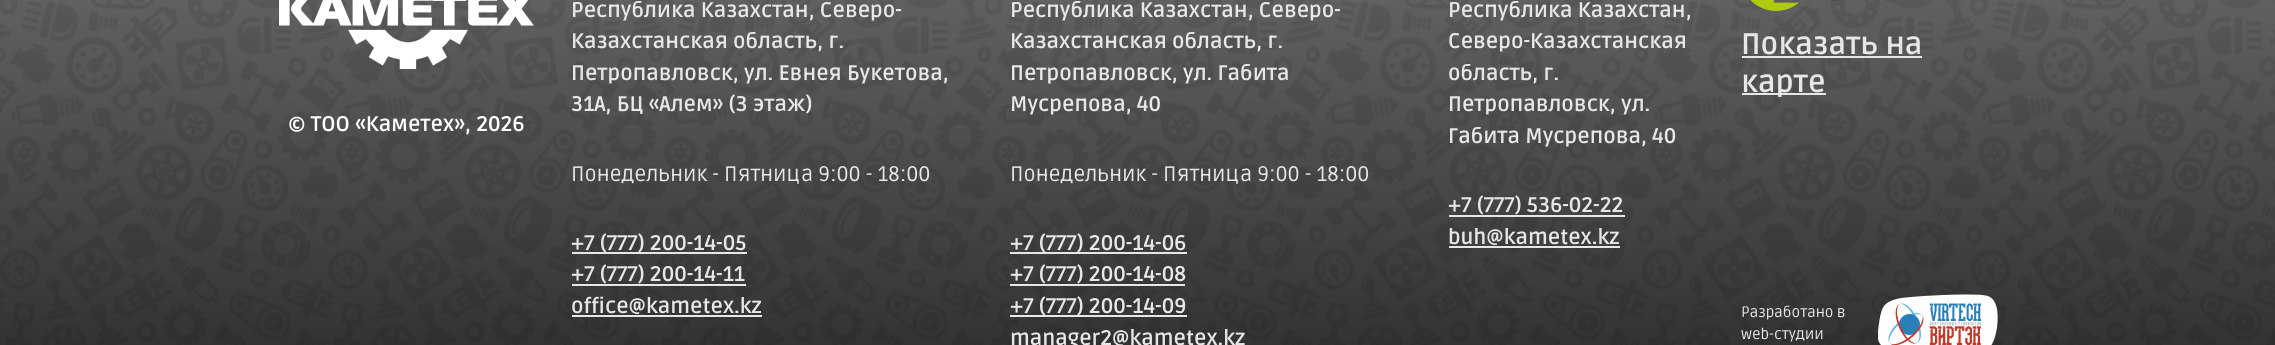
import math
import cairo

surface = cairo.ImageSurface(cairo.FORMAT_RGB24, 2275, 345)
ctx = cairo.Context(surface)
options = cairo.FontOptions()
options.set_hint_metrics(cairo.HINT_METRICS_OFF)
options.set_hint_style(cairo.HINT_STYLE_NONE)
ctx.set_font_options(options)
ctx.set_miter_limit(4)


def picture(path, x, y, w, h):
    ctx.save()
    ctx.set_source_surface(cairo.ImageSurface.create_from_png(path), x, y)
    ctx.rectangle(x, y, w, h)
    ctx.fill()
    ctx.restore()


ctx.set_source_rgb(1, 1, 1)
ctx.paint()
picture("img1.png", 0, 0, 2275, 345)
picture("img2.png", 279, 0, 255, 69)
ctx.select_font_face("Ruda", cairo.FONT_SLANT_NORMAL, cairo.FONT_WEIGHT_BOLD)
ctx.set_font_size(21.1)
ctx.set_source_rgb(1, 1, 1)
ctx.move_to(288, 131)
ctx.show_text("© ТОО «Каметех», 2026")
ctx.set_source_rgb(0.906, 0.906, 0.906)
ctx.move_to(571, 17)
ctx.show_text("Республика Казахстан, Северо-")
ctx.move_to(571, 48)
ctx.show_text("Казахстанская область, г.")
ctx.move_to(571, 80)
ctx.show_text("Петропавловск, ул. Евнея Букетова,")
ctx.move_to(571, 111)
ctx.show_text("31А, БЦ «Алем» (3 этаж)")
ctx.select_font_face("Ruda")
ctx.move_to(571, 181)
ctx.show_text("Понедельник - Пятница 9:00 - 18:00")
ctx.rectangle(572, 252, 175, 2)
ctx.fill()
ctx.select_font_face("Ruda", cairo.FONT_SLANT_NORMAL, cairo.FONT_WEIGHT_BOLD)
ctx.move_to(571, 250)
ctx.show_text("+7 (777) 200-14-05")
ctx.move_to(571, 281)
ctx.show_text("+7 (777) 200-14-11")
ctx.rectangle(572, 284, 174, 2)
ctx.fill()
ctx.move_to(571, 313)
ctx.show_text("office@kametex.kz")
ctx.rectangle(572, 315, 190, 2)
ctx.fill()
ctx.move_to(1010, 17)
ctx.show_text("Республика Казахстан, Северо-")
ctx.move_to(1010, 48)
ctx.show_text("Казахстанская область, г.")
ctx.move_to(1010, 80)
ctx.show_text("Петропавловск, ул. Габита")
ctx.move_to(1010, 111)
ctx.show_text("Мусрепова, 40")
ctx.select_font_face("Ruda")
ctx.move_to(1010, 181)
ctx.show_text("Понедельник - Пятница 9:00 - 18:00")
ctx.rectangle(1010, 252, 177, 2)
ctx.fill()
ctx.select_font_face("Ruda", cairo.FONT_SLANT_NORMAL, cairo.FONT_WEIGHT_BOLD)
ctx.move_to(1010, 250)
ctx.show_text("+7 (777) 200-14-06")
ctx.move_to(1010, 281)
ctx.show_text("+7 (777) 200-14-08")
ctx.rectangle(1010, 284, 175, 2)
ctx.fill()
ctx.rectangle(1010, 315, 177, 2)
ctx.fill()
ctx.move_to(1010, 313)
ctx.show_text("+7 (777) 200-14-09")
ctx.move_to(1010, 345)
ctx.show_text("manager2@kametex.kz")
ctx.move_to(1448, 17)
ctx.show_text("Республика Казахстан,")
ctx.move_to(1448, 48)
ctx.show_text("Северо-Казахстанская")
ctx.move_to(1448, 80)
ctx.show_text("область, г.")
ctx.move_to(1448, 111)
ctx.show_text("Петропавловск, ул.")
ctx.move_to(1448, 143)
ctx.show_text("Габита Мусрепова, 40")
ctx.move_to(1448, 212)
ctx.show_text("+7 (777) 536-02-22")
ctx.rectangle(1449, 215, 176, 2)
ctx.fill()
ctx.move_to(1448, 244)
ctx.show_text("buh@kametex.kz")
ctx.rectangle(1449, 246, 171, 2)
ctx.fill()
picture("img3.png", 1750, 0, 142, 11)
ctx.set_font_size(29.75)
ctx.move_to(1741, 54)
ctx.show_text("Показать на")
ctx.rectangle(1742, 56, 180, 2)
ctx.fill()
ctx.rectangle(1742, 93, 84, 2)
ctx.fill()
ctx.move_to(1741, 92)
ctx.show_text("карте")
ctx.select_font_face("Ruda")
ctx.set_font_size(15)
ctx.move_to(1741, 317)
ctx.show_text("Разработано в")
picture("img4.png", 1878, 294, 120, 51)
ctx.move_to(1741, 339)
ctx.show_text("web-студии")
surface.write_to_png("page.png")
